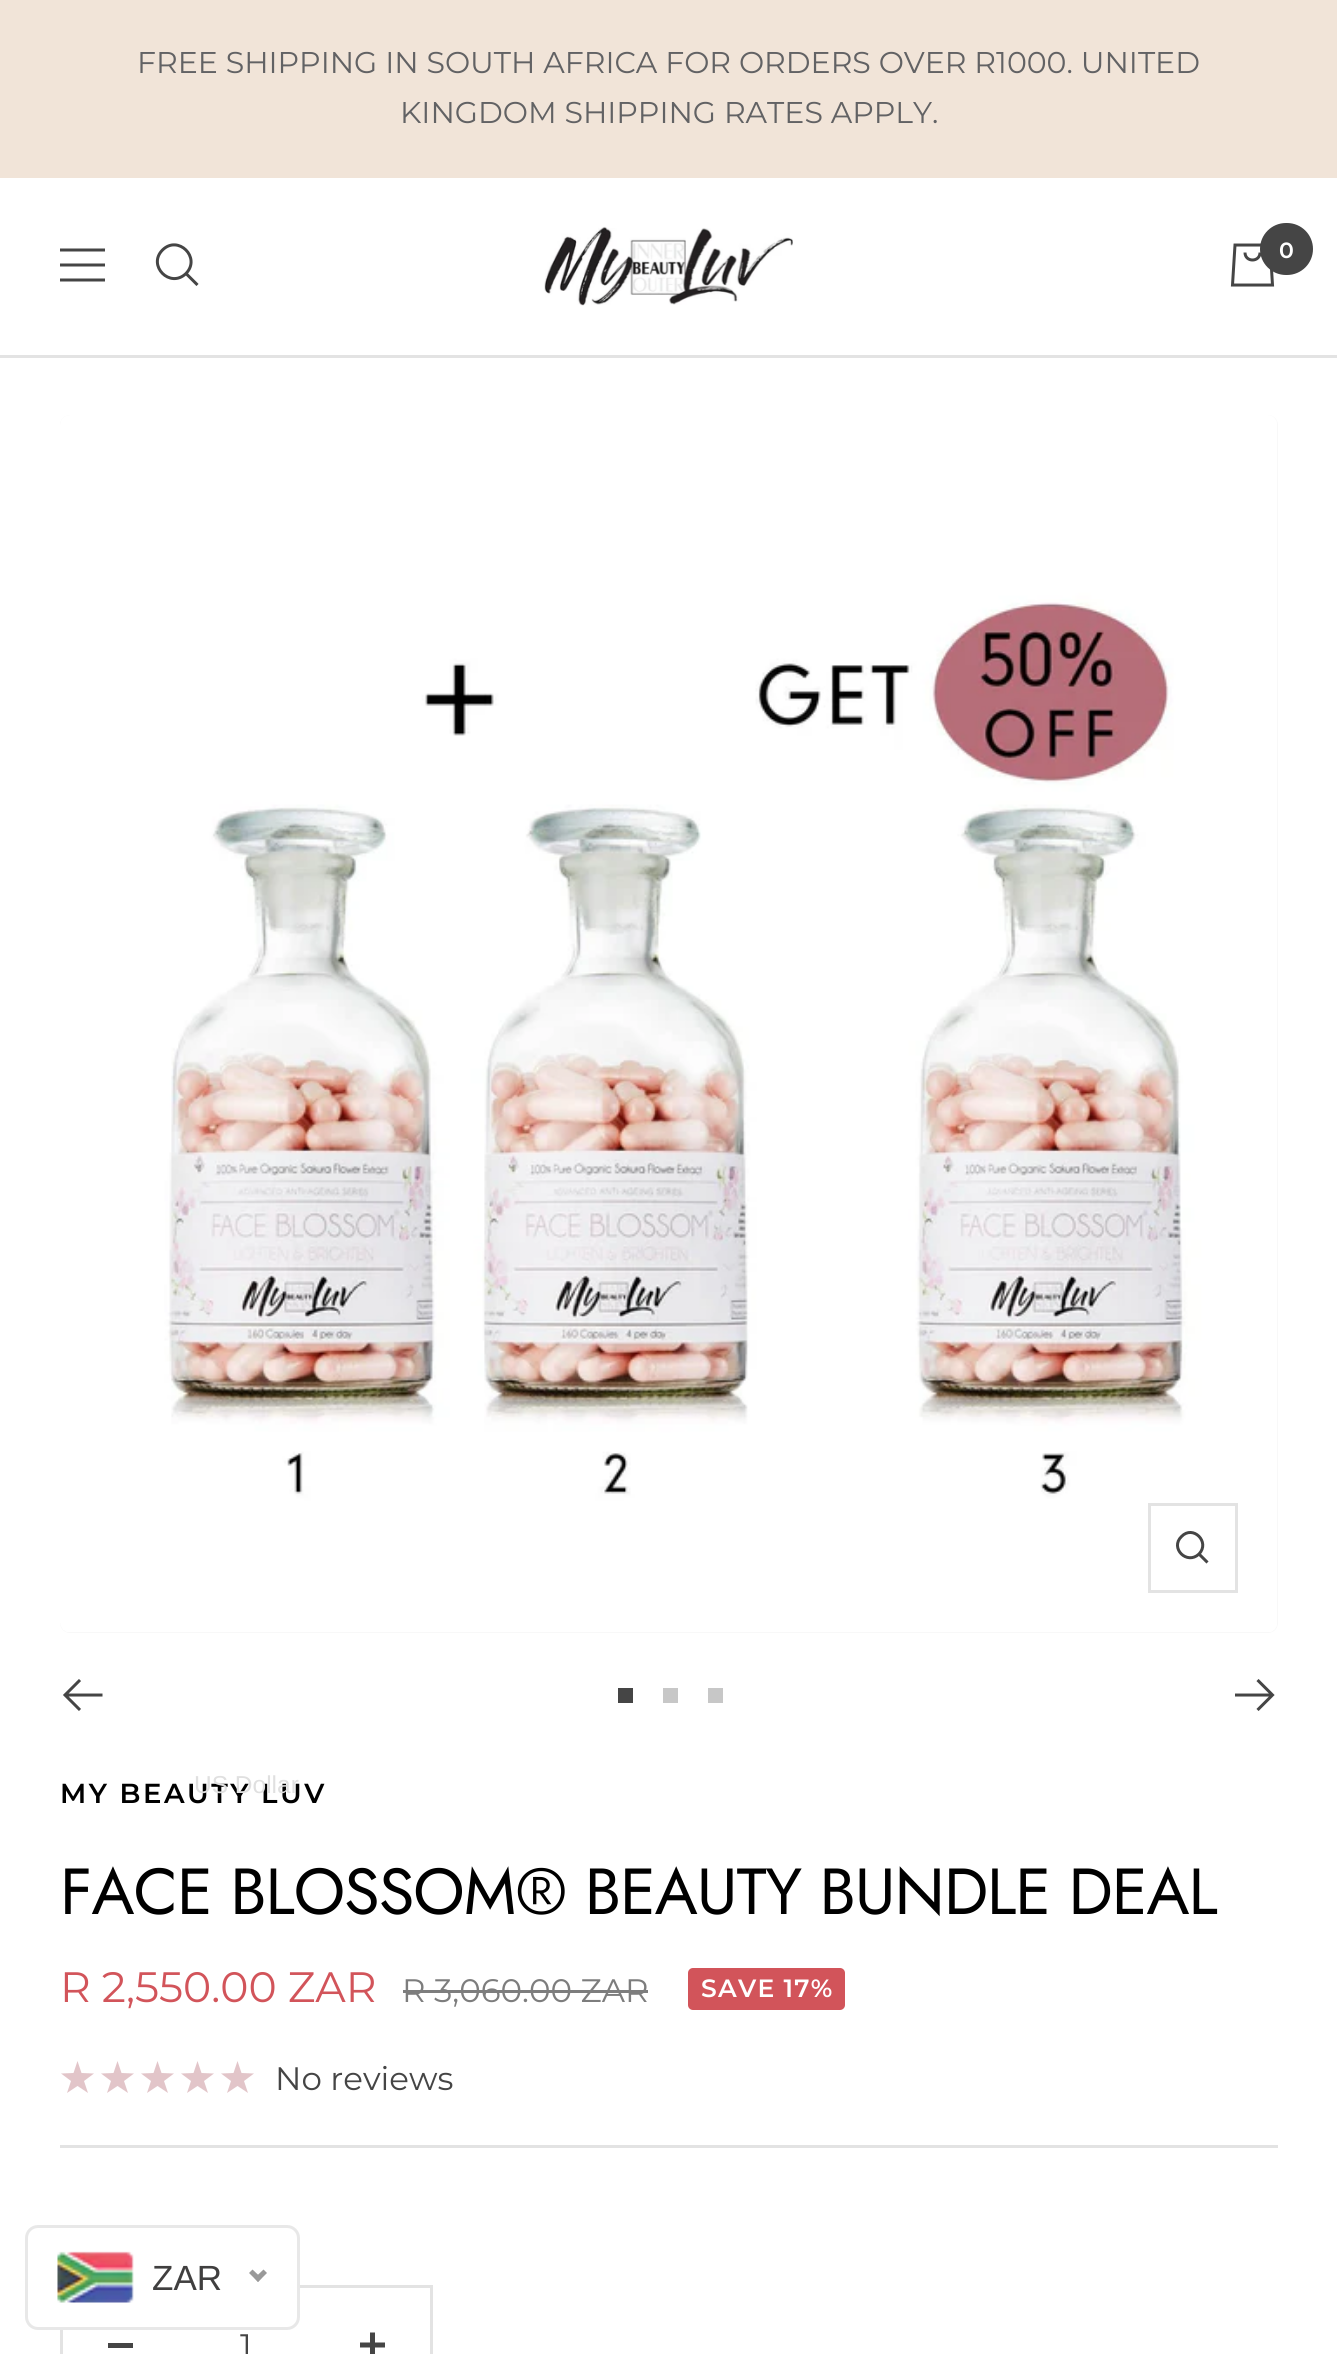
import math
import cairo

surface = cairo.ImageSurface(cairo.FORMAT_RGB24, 1337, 2354)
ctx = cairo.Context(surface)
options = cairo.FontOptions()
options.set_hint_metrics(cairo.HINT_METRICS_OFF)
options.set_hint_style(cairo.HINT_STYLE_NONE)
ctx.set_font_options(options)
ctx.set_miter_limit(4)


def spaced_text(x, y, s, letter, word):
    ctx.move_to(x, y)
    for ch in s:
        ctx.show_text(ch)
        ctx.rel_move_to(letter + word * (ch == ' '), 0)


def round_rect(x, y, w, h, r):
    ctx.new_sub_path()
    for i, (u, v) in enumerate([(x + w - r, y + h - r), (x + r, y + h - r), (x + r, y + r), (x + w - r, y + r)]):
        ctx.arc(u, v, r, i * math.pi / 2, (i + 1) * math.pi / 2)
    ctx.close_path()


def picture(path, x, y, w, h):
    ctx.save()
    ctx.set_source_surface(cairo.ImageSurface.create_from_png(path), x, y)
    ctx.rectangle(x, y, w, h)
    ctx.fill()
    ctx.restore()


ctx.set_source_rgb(1, 1, 1)
ctx.paint()
ctx.set_source_rgb(0.945, 0.894, 0.847)
ctx.rectangle(0, 0, 1337, 178)
ctx.fill()
ctx.select_font_face("Montserrat")
ctx.set_font_size(30)
ctx.set_source_rgb(0.384, 0.384, 0.392)
ctx.move_to(137, 73)
ctx.show_text("FREE SHIPPING IN SOUTH AFRICA FOR ORDERS OVER R1000. UNITED")
ctx.move_to(400, 123)
ctx.show_text("KINGDOM SHIPPING RATES APPLY.")
ctx.set_source_rgb(0.89, 0.89, 0.89)
ctx.new_path()
ctx.move_to(0, 355)
ctx.line_to(0, 358)
ctx.line_to(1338, 358)
ctx.line_to(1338, 180)
ctx.line_to(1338, 355)
ctx.close_path()
ctx.fill()
ctx.new_path()
ctx.move_to(60, 250)
ctx.line_to(105, 250)
ctx.move_to(60, 280)
ctx.line_to(105, 280)
ctx.close_path()
ctx.move_to(60, 265)
ctx.line_to(105, 265)
ctx.close_path()
ctx.set_source_rgb(0.271, 0.271, 0.271)
ctx.set_line_width(3)
ctx.stroke()
ctx.new_path()
ctx.move_to(186, 273.5)
ctx.curve_to(201.5, 257.5, 178, 234.5, 162.5, 250)
ctx.curve_to(147, 265.5, 170, 289, 186, 273.5)
ctx.close_path()
ctx.move_to(186, 273.5)
ctx.line_to(197.5, 285)
ctx.stroke()
picture("img1.png", 544, 226, 249, 80)
ctx.new_path()
ctx.move_to(1235, 245)
ctx.line_to(1270, 245)
ctx.line_to(1272.5, 285)
ctx.line_to(1232.5, 285)
ctx.close_path()
ctx.move_to(1245, 252.5)
ctx.curve_to(1245, 262.5, 1260, 262.5, 1260, 252.5)
ctx.stroke()
round_rect(1260, 223, 53, 52, 26)
ctx.fill()
ctx.select_font_face("Montserrat SemiBold")
ctx.set_font_size(22)
ctx.set_source_rgb(1, 1, 1)
ctx.move_to(1279, 258)
ctx.show_text("0")
ctx.rectangle(61.5, 2286.5, 370, 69)
ctx.set_source_rgb(0.89, 0.89, 0.89)
ctx.stroke()
ctx.set_source_rgb(1, 1, 1)
round_rect(26.5, 2226.5, 272, 102, 11.5)
ctx.fill_preserve()
ctx.set_source_rgb(0.91, 0.91, 0.91)
ctx.stroke()
ctx.set_font_size(27.5)
ctx.set_source_rgb(0, 0, 0)
spaced_text(60, 1803, "MY BEAUTY LUV", 2.5, 0)
ctx.select_font_face("Liberation Sans")
ctx.set_font_size(24.5)
ctx.set_source_rgb(0.878, 0.878, 0.878)
ctx.move_to(194, 1793)
ctx.show_text("US Dollar")
picture("img2.png", 57, 2251, 77, 52)
ctx.set_font_size(35)
ctx.set_source_rgb(0.251, 0.247, 0.247)
ctx.move_to(152, 2290)
ctx.show_text("ZAR")
ctx.set_source_rgb(0.6, 0.6, 0.6)
ctx.new_path()
ctx.move_to(263.5, 2269.5)
ctx.line_to(267, 2273)
ctx.line_to(258, 2282)
ctx.line_to(254.5, 2278)
ctx.close_path()
ctx.fill()
ctx.new_path()
ctx.move_to(252.5, 2269.5)
ctx.line_to(261.5, 2278)
ctx.line_to(258, 2282)
ctx.line_to(249, 2273)
ctx.close_path()
ctx.fill()
ctx.set_source_rgb(0.969, 0.969, 0.969)
round_rect(60, 415, 1218, 1218, 10)
ctx.fill()
picture("img3.png", 60, 415, 1217, 1217)
ctx.rectangle(1149.5, 1504.5, 87, 87)
ctx.set_source_rgb(0.89, 0.89, 0.89)
ctx.stroke()
ctx.new_path()
ctx.move_to(1199, 1554)
ctx.curve_to(1210.5, 1542, 1193, 1524.5, 1181.5, 1536.5)
ctx.curve_to(1169.5, 1548, 1187, 1565.5, 1199, 1554)
ctx.close_path()
ctx.move_to(1199, 1554)
ctx.line_to(1207.5, 1562.5)
ctx.set_source_rgb(0.271, 0.271, 0.271)
ctx.stroke()
ctx.new_path()
ctx.move_to(102.5, 1695)
ctx.line_to(65, 1695)
ctx.move_to(80, 1680)
ctx.line_to(65, 1695)
ctx.line_to(80, 1710)
ctx.stroke()
ctx.rectangle(618, 1688, 15, 15)
ctx.fill()
ctx.set_source_rgb(0.78, 0.78, 0.78)
ctx.rectangle(663, 1688, 15, 15)
ctx.fill()
ctx.rectangle(708, 1688, 15, 15)
ctx.fill()
ctx.new_path()
ctx.move_to(1235, 1695)
ctx.line_to(1272.5, 1695)
ctx.move_to(1257.5, 1680)
ctx.line_to(1272.5, 1695)
ctx.line_to(1257.5, 1710)
ctx.set_source_rgb(0.271, 0.271, 0.271)
ctx.stroke()
ctx.set_source_rgb(0.89, 0.89, 0.89)
ctx.rectangle(60, 2145, 1218, 3)
ctx.fill()
ctx.select_font_face("Jost")
ctx.set_font_size(65)
ctx.set_source_rgb(0, 0, 0)
spaced_text(60, 1914, "FACE BLOSSOM® BEAUTY BUNDLE DEAL", -1, 0)
ctx.select_font_face("Montserrat")
ctx.set_font_size(42.5)
ctx.set_source_rgb(0.824, 0.329, 0.353)
ctx.move_to(60, 2002)
ctx.show_text("R 2,550.00 ZAR")
ctx.set_font_size(32.5)
ctx.set_source_rgb(0.49, 0.49, 0.49)
ctx.move_to(402, 2002)
ctx.show_text("R 3,060.00 ZAR")
ctx.rectangle(403, 1990, 245, 3)
ctx.fill()
ctx.set_source_rgb(0.824, 0.329, 0.353)
round_rect(688, 1968, 157, 42, 5)
ctx.fill()
ctx.select_font_face("Montserrat SemiBold")
ctx.set_font_size(25)
ctx.set_source_rgb(1, 1, 1)
spaced_text(701, 1997, "SAVE 17%", 1.25, 0)
ctx.set_source_rgb(0.886, 0.773, 0.788)
ctx.new_path()
ctx.move_to(77.5, 2061)
ctx.line_to(81.5, 2073)
ctx.line_to(94, 2073.5)
ctx.line_to(84, 2081)
ctx.line_to(88, 2093)
ctx.line_to(77.5, 2086)
ctx.line_to(67, 2093)
ctx.line_to(71, 2081)
ctx.line_to(61, 2073.5)
ctx.line_to(73.5, 2073)
ctx.close_path()
ctx.fill()
ctx.new_path()
ctx.move_to(117.5, 2061)
ctx.line_to(121.5, 2073)
ctx.line_to(134, 2073.5)
ctx.line_to(124, 2081)
ctx.line_to(128, 2093)
ctx.line_to(117.5, 2086)
ctx.line_to(107, 2093)
ctx.line_to(111, 2081)
ctx.line_to(101, 2073.5)
ctx.line_to(113.5, 2073)
ctx.close_path()
ctx.fill()
ctx.new_path()
ctx.move_to(157.5, 2061)
ctx.line_to(161.5, 2073)
ctx.line_to(174, 2073.5)
ctx.line_to(164, 2081)
ctx.line_to(168, 2093)
ctx.line_to(157.5, 2086)
ctx.line_to(147, 2093)
ctx.line_to(151, 2081)
ctx.line_to(141, 2073.5)
ctx.line_to(153.5, 2073)
ctx.close_path()
ctx.fill()
ctx.new_path()
ctx.move_to(197.5, 2061)
ctx.line_to(201.5, 2073)
ctx.line_to(214, 2073.5)
ctx.line_to(204, 2081)
ctx.line_to(208, 2093)
ctx.line_to(197.5, 2086)
ctx.line_to(187, 2093)
ctx.line_to(191, 2081)
ctx.line_to(181, 2073.5)
ctx.line_to(193.5, 2073)
ctx.close_path()
ctx.fill()
ctx.new_path()
ctx.move_to(237.5, 2061)
ctx.line_to(241.5, 2073)
ctx.line_to(254, 2073.5)
ctx.line_to(244, 2081)
ctx.line_to(248, 2093)
ctx.line_to(237.5, 2086)
ctx.line_to(227, 2093)
ctx.line_to(231, 2081)
ctx.line_to(221, 2073.5)
ctx.line_to(233.5, 2073)
ctx.close_path()
ctx.fill()
ctx.select_font_face("Montserrat")
ctx.set_font_size(32.5)
ctx.set_source_rgb(0.271, 0.271, 0.271)
ctx.move_to(275, 2090)
ctx.show_text("No reviews")
ctx.rectangle(108, 2343, 25, 5)
ctx.fill()
ctx.move_to(240, 2357)
ctx.show_text("1")
picture("img4.png", 360, 2332, 25, 22)
surface.write_to_png("page.png")
